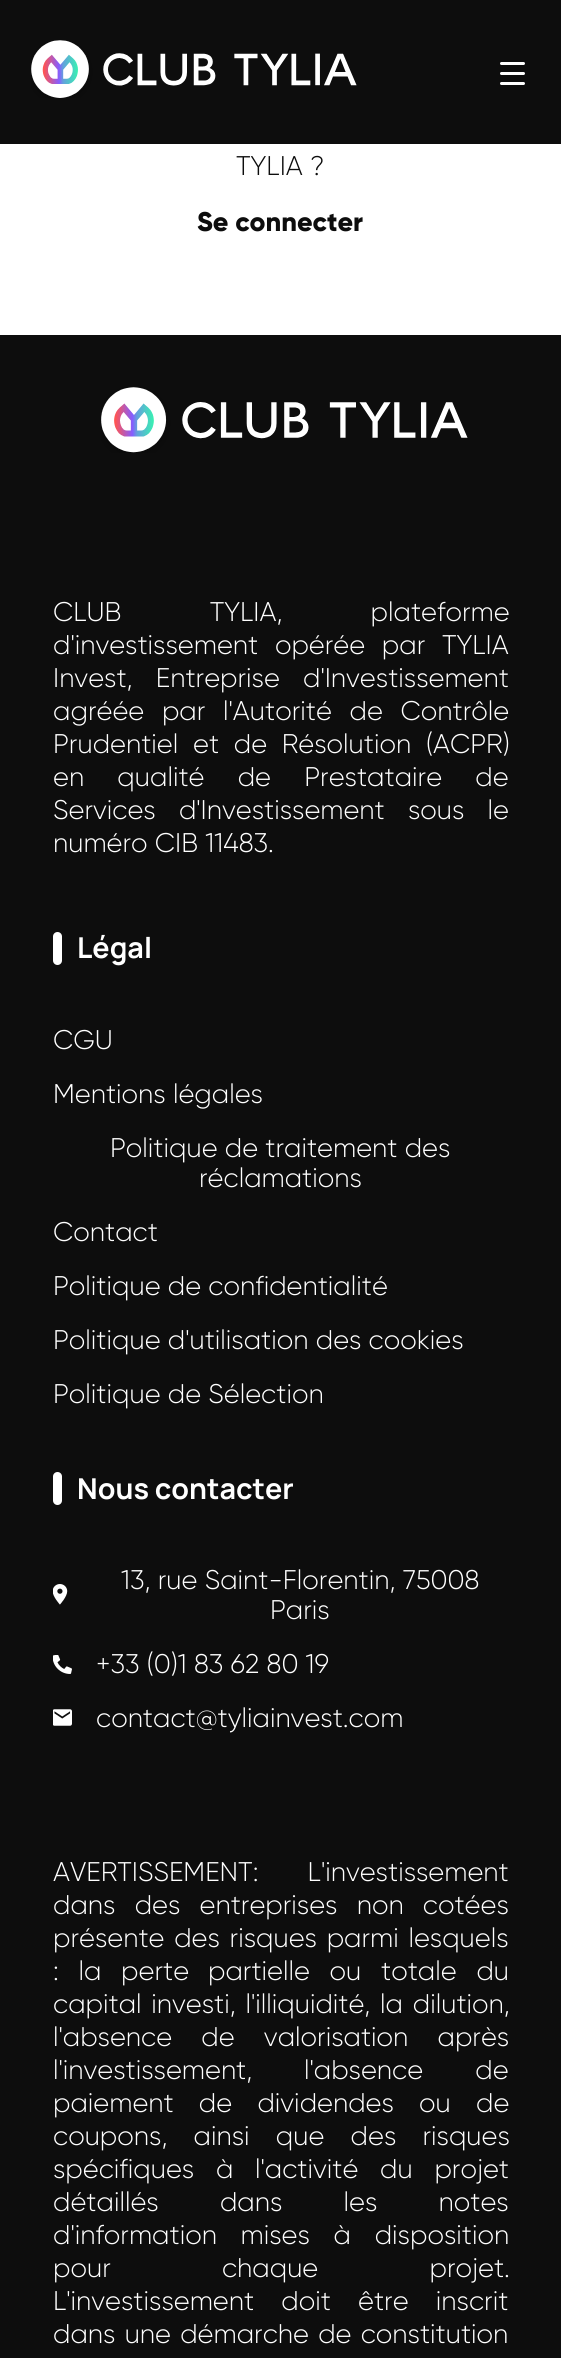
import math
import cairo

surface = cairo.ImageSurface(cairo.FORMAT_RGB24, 561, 2358)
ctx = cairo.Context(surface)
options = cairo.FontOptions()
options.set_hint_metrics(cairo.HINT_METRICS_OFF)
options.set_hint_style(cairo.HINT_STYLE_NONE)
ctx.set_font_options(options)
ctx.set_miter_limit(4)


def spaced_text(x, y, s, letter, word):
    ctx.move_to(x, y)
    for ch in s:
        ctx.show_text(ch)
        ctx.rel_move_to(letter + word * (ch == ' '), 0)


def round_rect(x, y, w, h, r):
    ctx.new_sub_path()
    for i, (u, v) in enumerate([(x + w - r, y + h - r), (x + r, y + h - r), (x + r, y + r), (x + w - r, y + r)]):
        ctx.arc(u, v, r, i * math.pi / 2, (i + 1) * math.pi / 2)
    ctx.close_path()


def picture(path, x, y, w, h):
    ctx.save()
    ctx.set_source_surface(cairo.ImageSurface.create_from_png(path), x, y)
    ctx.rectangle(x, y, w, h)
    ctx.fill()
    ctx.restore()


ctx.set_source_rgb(1, 1, 1)
ctx.paint()
ctx.set_source_rgb(0.051, 0.051, 0.051)
ctx.rectangle(0, 0, 561, 144)
ctx.fill()
picture("img1.png", 31, 40, 326, 58)
ctx.set_source_rgb(1, 1, 1)
round_rect(500, 62, 25, 3, 1.5)
ctx.fill()
round_rect(500, 72, 25, 3, 1.5)
ctx.fill()
round_rect(500, 82, 25, 3, 1.5)
ctx.fill()
ctx.select_font_face("Gilroy Light")
ctx.set_font_size(27)
ctx.set_source_rgb(0.051, 0.051, 0.051)
ctx.move_to(236, 175)
ctx.show_text("TYLIA ?")
ctx.select_font_face("Gilroy ExtraBold")
ctx.move_to(197, 231)
ctx.show_text("Se connecter")
ctx.rectangle(0, 335, 561, 2023)
ctx.fill()
picture("img2.png", 101, 387, 367, 66)
ctx.select_font_face("Gilroy Light")
ctx.set_source_rgb(1, 1, 1)
spaced_text(53, 621, "CLUB TYLIA, plateforme", 0, 81)
spaced_text(53, 654, "d'investissement opérée par TYLIA", 0, 9.5)
spaced_text(53, 687, "Invest, Entreprise d'Investissement", 0, 16)
spaced_text(53, 720, "agréée par l'Autorité de Contrôle", 0, 10.5)
spaced_text(53, 753, "Prudentiel et de Résolution (ACPR)", 0, 7.5)
spaced_text(53, 786, "en qualité de Prestataire de", 0, 26)
spaced_text(53, 819, "Services d'Investissement sous le", 0, 16)
ctx.move_to(53, 852)
ctx.show_text("numéro CIB 11483.")
round_rect(53, 932, 9, 33, 4.5)
ctx.fill()
ctx.select_font_face("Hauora", cairo.FONT_SLANT_NORMAL, cairo.FONT_WEIGHT_BOLD)
ctx.set_font_size(28.75)
ctx.move_to(77, 958)
ctx.show_text("Légal")
ctx.select_font_face("Gilroy Light")
ctx.set_font_size(27)
ctx.move_to(53, 1049)
ctx.show_text("CGU")
ctx.move_to(53, 1103)
ctx.show_text("Mentions légales")
ctx.move_to(110, 1157)
ctx.show_text("Politique de traitement des")
ctx.move_to(199, 1187)
ctx.show_text("réclamations")
ctx.move_to(53, 1241)
ctx.show_text("Contact")
ctx.move_to(53, 1295)
ctx.show_text("Politique de confidentialité")
ctx.move_to(53, 1349)
ctx.show_text("Politique d'utilisation des cookies")
ctx.move_to(53, 1403)
ctx.show_text("Politique de Sélection")
round_rect(53, 1472, 9, 33, 4.5)
ctx.fill()
ctx.select_font_face("Hauora", cairo.FONT_SLANT_NORMAL, cairo.FONT_WEIGHT_BOLD)
ctx.set_font_size(28.75)
ctx.move_to(77, 1499)
ctx.show_text("Nous contacter")
picture("img3.png", 53, 1584, 15, 21)
ctx.select_font_face("Gilroy Light")
ctx.set_font_size(27)
ctx.move_to(121, 1589)
ctx.show_text("13, rue Saint-Florentin, 75008")
ctx.move_to(270, 1619)
ctx.show_text("Paris")
picture("img4.png", 53, 1655, 19, 19)
ctx.move_to(96, 1673)
ctx.show_text("+33 (0)1 83 62 80 19")
picture("img5.png", 53, 1709, 19, 17)
ctx.move_to(96, 1727)
ctx.show_text("contact@tyliainvest.com")
spaced_text(53, 1881, "AVERTISSEMENT: L'investissement", 0, 42)
spaced_text(53, 1914, "dans des entreprises non cotées", 0, 12)
spaced_text(53, 1947, "présente des risques parmi lesquels", 0, 2.5)
spaced_text(53, 1980, ": la perte", 0, 12.5)
spaced_text(208, 1980, "partielle ou totale du", 0, 12.5)
spaced_text(53, 2013, "capital investi, l'illiquidité, la dilution,", 0, 2.5)
spaced_text(53, 2046, "l'absence de valorisation après", 0, 22)
ctx.move_to(53, 2079)
ctx.show_text("l'investissement,")
spaced_text(304, 2079, "l'absence de", 0, 45)
spaced_text(53, 2112, "paiement de dividendes ou de", 0, 18)
spaced_text(53, 2145, "coupons, ainsi que des risques", 0, 19)
spaced_text(53, 2178, "spécifiques à l'activité du projet", 0, 14.5)
spaced_text(53, 2211, "détaillés dans les notes", 0, 54)
spaced_text(53, 2244, "d'information mises à disposition", 0, 16.5)
spaced_text(53, 2277, "pour chaque projet.", 0, 104)
spaced_text(53, 2310, "L'investissement doit être inscrit", 0, 20)
spaced_text(53, 2343, "dans une démarche de constitution", 0, 2)
surface.write_to_png("page.png")
